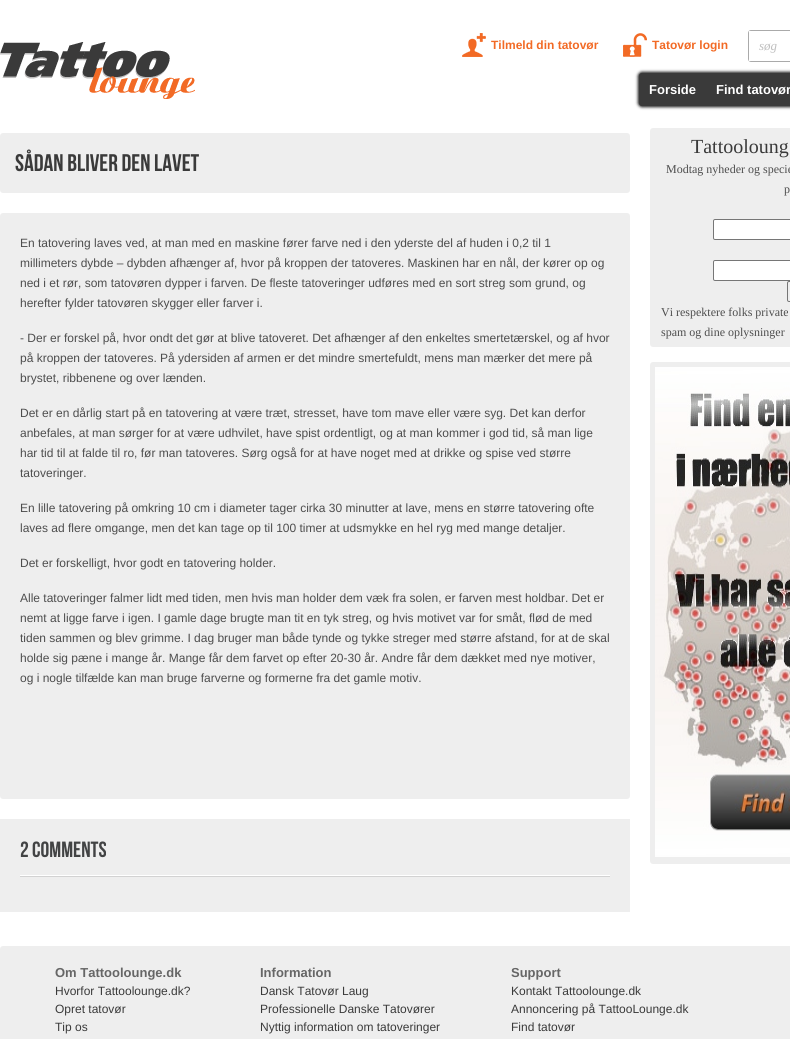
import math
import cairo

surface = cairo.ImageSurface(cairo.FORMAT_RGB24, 790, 1039)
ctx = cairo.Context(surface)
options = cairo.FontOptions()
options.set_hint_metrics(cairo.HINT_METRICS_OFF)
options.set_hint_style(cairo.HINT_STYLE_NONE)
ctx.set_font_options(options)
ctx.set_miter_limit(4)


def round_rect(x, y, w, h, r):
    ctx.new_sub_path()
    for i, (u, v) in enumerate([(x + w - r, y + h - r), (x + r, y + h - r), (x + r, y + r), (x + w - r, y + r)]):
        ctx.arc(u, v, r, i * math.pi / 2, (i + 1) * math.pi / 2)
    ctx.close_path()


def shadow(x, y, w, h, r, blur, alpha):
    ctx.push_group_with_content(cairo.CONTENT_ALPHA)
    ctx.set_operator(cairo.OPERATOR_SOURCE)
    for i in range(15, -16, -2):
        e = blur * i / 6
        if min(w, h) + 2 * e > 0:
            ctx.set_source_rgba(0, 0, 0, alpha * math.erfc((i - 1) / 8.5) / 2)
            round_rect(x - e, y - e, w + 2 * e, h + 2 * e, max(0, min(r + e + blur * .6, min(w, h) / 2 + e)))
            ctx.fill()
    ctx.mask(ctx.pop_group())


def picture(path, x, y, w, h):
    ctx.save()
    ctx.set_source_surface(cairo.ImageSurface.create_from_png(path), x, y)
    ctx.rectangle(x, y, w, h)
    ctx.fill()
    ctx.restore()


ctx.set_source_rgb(1, 1, 1)
ctx.paint()
picture("img1.png", 0, 42, 195, 57)
picture("img2.png", 462, 33, 24, 24)
ctx.select_font_face("Liberation Sans", cairo.FONT_SLANT_NORMAL, cairo.FONT_WEIGHT_BOLD)
ctx.set_font_size(12)
ctx.set_source_rgb(0.949, 0.416, 0.145)
ctx.move_to(491, 49)
ctx.show_text("Tilmeld din tatovør")
picture("img3.png", 623, 33, 24, 24)
ctx.move_to(652, 49)
ctx.show_text("Tatovør login")
round_rect(748.5, 30.5, 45, 31, 2.5)
ctx.set_source_rgb(0.667, 0.667, 0.667)
ctx.set_line_width(1)
ctx.stroke()
ctx.set_source_rgb(1, 1, 1)
ctx.rectangle(749, 31, 2, 30)
ctx.fill()
ctx.select_font_face("Liberation Serif", cairo.FONT_SLANT_ITALIC)
ctx.set_font_size(13)
ctx.set_source_rgb(0.749, 0.749, 0.749)
ctx.move_to(759, 50)
ctx.show_text("søg")
ctx.set_source_rgb(0.067, 0.067, 0.067)
shadow(638, 72, 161, 35, 4, 1.5, 1)
ctx.set_source_rgb(0.227, 0.227, 0.227)
round_rect(639, 73, 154, 33, 3)
ctx.fill()
ctx.select_font_face("Liberation Sans", cairo.FONT_SLANT_NORMAL, cairo.FONT_WEIGHT_BOLD)
ctx.set_source_rgb(1, 1, 1)
ctx.move_to(649, 94)
ctx.show_text("Forside")
ctx.move_to(716, 94)
ctx.show_text("Find tatovør")
ctx.set_source_rgb(0.933, 0.933, 0.933)
round_rect(0, 133, 630, 60, 3)
ctx.fill()
ctx.select_font_face("Bebas Neue")
ctx.set_font_size(24)
ctx.set_source_rgb(0.227, 0.227, 0.227)
ctx.move_to(15, 171)
ctx.show_text("Sådan bliver den lavet")
ctx.set_source_rgb(0.933, 0.933, 0.933)
round_rect(0, 213, 630, 586, 3)
ctx.fill()
ctx.select_font_face("Liberation Sans")
ctx.set_font_size(12)
ctx.set_source_rgb(0.302, 0.302, 0.302)
ctx.move_to(20, 247)
ctx.show_text("En tatovering laves ved, at man med en maskine fører farve ned i den yderste del af huden i 0,2 til 1")
ctx.move_to(20, 267)
ctx.show_text("millimeters dybde – dybden afhænger af, hvor på kroppen der tatoveres. Maskinen har en nål, der kører op og")
ctx.move_to(20, 287)
ctx.show_text("ned i et rør, som tatovøren dypper i farven. De fleste tatoveringer udføres med en sort streg som grund, og")
ctx.move_to(20, 307)
ctx.show_text("herefter fylder tatovøren skygger eller farver i.")
ctx.move_to(20, 342)
ctx.show_text("- Der er forskel på, hvor ondt det gør at blive tatoveret. Det afhænger af den enkeltes smertetærskel, og af hvor")
ctx.move_to(20, 362)
ctx.show_text("på kroppen der tatoveres. På ydersiden af armen er det mindre smertefuldt, mens man mærker det mere på")
ctx.move_to(20, 382)
ctx.show_text("brystet, ribbenene og over lænden.")
ctx.move_to(20, 417)
ctx.show_text("Det er en dårlig start på en tatovering at være træt, stresset, have tom mave eller være syg. Det kan derfor")
ctx.move_to(20, 437)
ctx.show_text("anbefales, at man sørger for at være udhvilet, have spist ordentligt, og at man kommer i god tid, så man lige")
ctx.move_to(20, 457)
ctx.show_text("har tid til at falde til ro, før man tatoveres. Sørg også for at have noget med at drikke og spise ved større")
ctx.move_to(20, 477)
ctx.show_text("tatoveringer.")
ctx.move_to(20, 512)
ctx.show_text("En lille tatovering på omkring 10 cm i diameter tager cirka 30 minutter at lave, mens en større tatovering ofte")
ctx.move_to(20, 532)
ctx.show_text("laves ad flere omgange, men det kan tage op til 100 timer at udsmykke en hel ryg med mange detaljer.")
ctx.move_to(20, 567)
ctx.show_text("Det er forskelligt, hvor godt en tatovering holder.")
ctx.move_to(20, 602)
ctx.show_text("Alle tatoveringer falmer lidt med tiden, men hvis man holder dem væk fra solen, er farven mest holdbar. Det er")
ctx.move_to(20, 622)
ctx.show_text("nemt at ligge farve i igen. I gamle dage brugte man tit en tyk streg, og hvis motivet var for småt, flød de med")
ctx.move_to(20, 642)
ctx.show_text("tiden sammen og blev grimme. I dag bruger man både tynde og tykke streger med større afstand, for at de skal")
ctx.move_to(20, 662)
ctx.show_text("holde sig pæne i mange år. Mange får dem farvet op efter 20-30 år. Andre får dem dækket med nye motiver,")
ctx.move_to(20, 682)
ctx.show_text("og i nogle tilfælde kan man bruge farverne og formerne fra det gamle motiv.")
ctx.set_source_rgb(0.933, 0.933, 0.933)
ctx.rectangle(0, 819, 630, 93)
ctx.fill()
ctx.set_source_rgb(0.824, 0.824, 0.824)
ctx.rectangle(20, 876, 590, 1)
ctx.fill()
ctx.select_font_face("Bebas Neue")
ctx.set_font_size(22)
ctx.set_source_rgb(0.259, 0.263, 0.267)
ctx.move_to(20, 857)
ctx.show_text("2 Comments")
ctx.set_source_rgb(1, 1, 1)
ctx.rectangle(20, 875, 590, 1)
ctx.fill()
ctx.set_source_rgb(0.933, 0.933, 0.933)
round_rect(650, 128, 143, 219, 3)
ctx.fill()
ctx.select_font_face("Liberation Serif")
ctx.set_font_size(20)
ctx.set_source_rgb(0.227, 0.227, 0.227)
ctx.move_to(691, 153)
ctx.show_text("Tattooloung")
ctx.set_font_size(12)
ctx.set_source_rgb(0.302, 0.302, 0.302)
ctx.move_to(666, 173)
ctx.show_text("Modtag nyheder og specie")
ctx.move_to(784, 193)
ctx.show_text("p")
ctx.set_source_rgb(1, 1, 1)
round_rect(713.5, 219.5, 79, 20, 1.5)
ctx.fill_preserve()
ctx.set_source_rgb(0.463, 0.463, 0.463)
ctx.stroke()
ctx.set_source_rgb(1, 1, 1)
round_rect(713.5, 260.5, 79, 20, 1.5)
ctx.fill_preserve()
ctx.set_source_rgb(0.463, 0.463, 0.463)
ctx.stroke()
round_rect(787.5, 281.5, 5, 20, 1.5)
ctx.stroke()
ctx.set_source_rgb(0.302, 0.302, 0.302)
ctx.move_to(661, 316)
ctx.show_text("Vi respektere folks private")
ctx.move_to(661, 336)
ctx.show_text("spam og dine oplysninger")
ctx.set_source_rgb(0.933, 0.933, 0.933)
round_rect(650, 362, 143, 502, 3)
ctx.fill()
picture("img4.png", 655, 367, 135, 490)
round_rect(0, 946, 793, 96, 3)
ctx.fill()
ctx.select_font_face("Liberation Sans", cairo.FONT_SLANT_NORMAL, cairo.FONT_WEIGHT_BOLD)
ctx.set_font_size(13)
ctx.set_source_rgb(0.4, 0.4, 0.4)
ctx.move_to(55, 977)
ctx.show_text("Om Tattoolounge.dk")
ctx.select_font_face("Liberation Sans")
ctx.set_font_size(12)
ctx.set_source_rgb(0.227, 0.227, 0.227)
ctx.move_to(55, 995)
ctx.show_text("Hvorfor Tattoolounge.dk?")
ctx.move_to(55, 1013)
ctx.show_text("Opret tatovør")
ctx.move_to(55, 1031)
ctx.show_text("Tip os")
ctx.select_font_face("Liberation Sans", cairo.FONT_SLANT_NORMAL, cairo.FONT_WEIGHT_BOLD)
ctx.set_font_size(13)
ctx.set_source_rgb(0.4, 0.4, 0.4)
ctx.move_to(260, 977)
ctx.show_text("Information")
ctx.select_font_face("Liberation Sans")
ctx.set_font_size(12)
ctx.set_source_rgb(0.227, 0.227, 0.227)
ctx.move_to(260, 995)
ctx.show_text("Dansk Tatovør Laug")
ctx.move_to(260, 1013)
ctx.show_text("Professionelle Danske Tatovører")
ctx.move_to(260, 1031)
ctx.show_text("Nyttig information om tatoveringer")
ctx.select_font_face("Liberation Sans", cairo.FONT_SLANT_NORMAL, cairo.FONT_WEIGHT_BOLD)
ctx.set_font_size(13)
ctx.set_source_rgb(0.4, 0.4, 0.4)
ctx.move_to(511, 977)
ctx.show_text("Support")
ctx.select_font_face("Liberation Sans")
ctx.set_font_size(12)
ctx.set_source_rgb(0.227, 0.227, 0.227)
ctx.move_to(511, 995)
ctx.show_text("Kontakt Tattoolounge.dk")
ctx.move_to(511, 1013)
ctx.show_text("Annoncering på TattooLounge.dk")
ctx.move_to(511, 1031)
ctx.show_text("Find tatovør")
surface.write_to_png("page.png")
